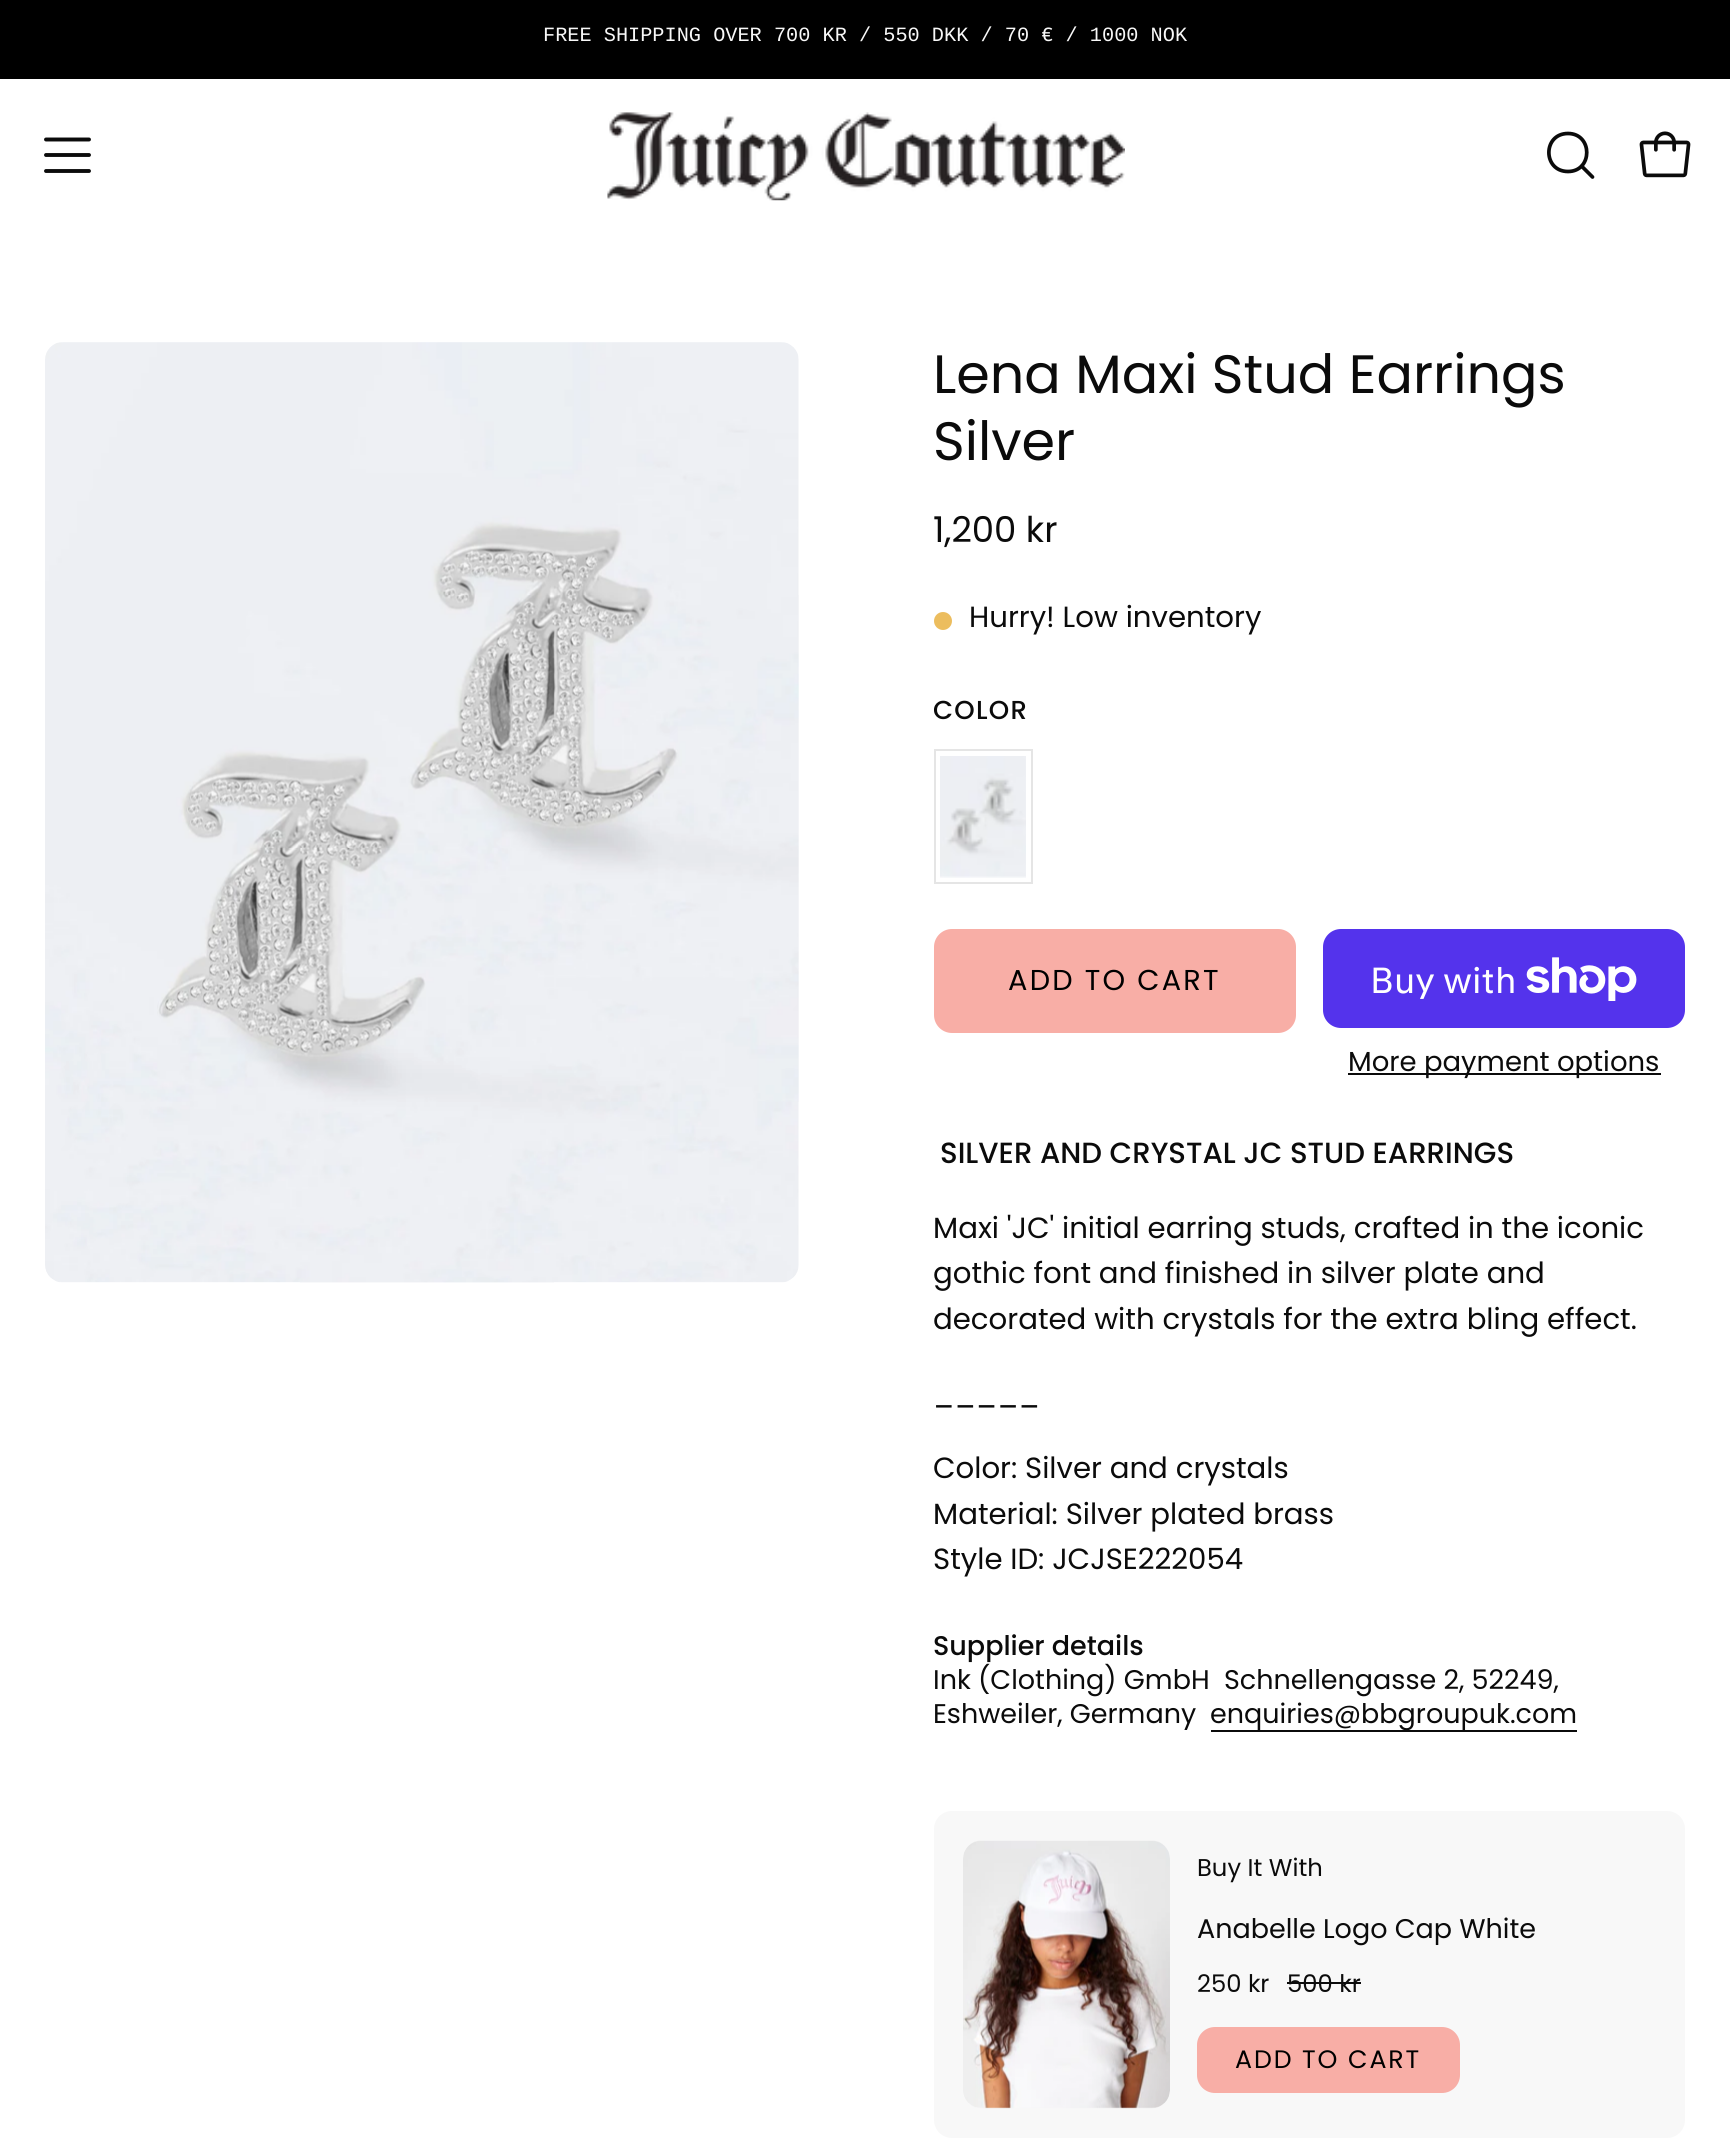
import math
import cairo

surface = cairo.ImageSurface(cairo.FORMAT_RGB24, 1730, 2139)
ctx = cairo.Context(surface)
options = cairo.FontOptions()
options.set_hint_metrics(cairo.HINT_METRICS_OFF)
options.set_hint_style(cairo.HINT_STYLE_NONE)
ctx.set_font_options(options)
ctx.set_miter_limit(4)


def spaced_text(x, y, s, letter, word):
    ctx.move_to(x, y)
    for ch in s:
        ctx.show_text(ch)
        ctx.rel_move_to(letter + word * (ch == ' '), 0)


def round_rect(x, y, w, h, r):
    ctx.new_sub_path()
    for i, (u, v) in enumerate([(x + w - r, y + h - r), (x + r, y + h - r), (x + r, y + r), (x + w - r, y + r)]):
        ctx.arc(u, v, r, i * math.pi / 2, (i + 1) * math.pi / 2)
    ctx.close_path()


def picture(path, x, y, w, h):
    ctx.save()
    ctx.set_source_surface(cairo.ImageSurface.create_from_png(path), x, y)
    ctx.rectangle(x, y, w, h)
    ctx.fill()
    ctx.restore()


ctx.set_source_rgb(1, 1, 1)
ctx.paint()
ctx.set_source_rgb(0, 0, 0)
ctx.rectangle(0, 0, 1730, 79)
ctx.fill()
ctx.select_font_face("Liberation Mono")
ctx.set_font_size(20.25)
ctx.set_source_rgb(0.969, 0.969, 0.969)
ctx.move_to(543, 41)
ctx.show_text("FREE SHIPPING OVER 700 KR / 550 DKK / 70 € / 1000 NOK")
ctx.new_path()
ctx.move_to(46, 155)
ctx.line_to(89, 155)
ctx.move_to(46, 139.5)
ctx.line_to(89, 139.5)
ctx.move_to(46, 171)
ctx.line_to(89, 171)
ctx.set_source_rgb(0.043, 0.043, 0.043)
ctx.set_line_width(3.9)
ctx.set_line_cap(cairo.LINE_CAP_ROUND)
ctx.set_line_join(cairo.LINE_JOIN_ROUND)
ctx.stroke()
picture("img1.png", 607, 112, 518, 89)
ctx.new_path()
ctx.move_to(1568, 171.5)
ctx.curve_to(1593, 171.5, 1593, 133.5, 1568, 133.5)
ctx.curve_to(1542.5, 133.5, 1542.5, 171.5, 1568, 171.5)
ctx.close_path()
ctx.move_to(1581.5, 166)
ctx.line_to(1592.5, 177)
ctx.set_line_width(3.7)
ctx.stroke()
picture("img2.png", 1639, 131, 52, 47)
picture("img3.png", 45, 342, 754, 941)
ctx.select_font_face("Poppins")
ctx.set_font_size(54)
ctx.move_to(933, 393)
ctx.show_text("Lena Maxi Stud Earrings")
ctx.move_to(933, 460)
ctx.show_text("Silver")
ctx.set_font_size(35.5)
ctx.move_to(933, 542)
ctx.show_text("1,200 kr")
ctx.set_source_rgb(0.925, 0.741, 0.369)
ctx.new_path()
ctx.arc(943, 621, 9, 0, 2 * math.pi)
ctx.fill()
ctx.set_font_size(29.2)
ctx.set_source_rgb(0.043, 0.043, 0.043)
ctx.move_to(969, 627)
ctx.show_text("Hurry! Low inventory")
ctx.select_font_face("Poppins Medium")
ctx.set_font_size(26)
spaced_text(933, 719, "COLOR", 1.25, 0)
picture("img4.png", 940, 756, 86, 122)
ctx.rectangle(935, 750, 97, 133)
ctx.set_source_rgb(0.898, 0.898, 0.898)
ctx.set_line_width(2)
ctx.set_line_cap(cairo.LINE_CAP_BUTT)
ctx.set_line_join(cairo.LINE_JOIN_MITER)
ctx.stroke()
ctx.set_source_rgb(0.969, 0.682, 0.651)
round_rect(934, 929, 362, 104, 18)
ctx.fill()
ctx.select_font_face("Poppins")
ctx.set_font_size(28.75)
ctx.set_source_rgb(0, 0, 0)
spaced_text(1008, 990, "ADD TO CART", 2.25, 0)
ctx.set_source_rgb(0.329, 0.2, 0.922)
round_rect(1323, 929, 362, 99, 18)
ctx.fill()
ctx.select_font_face("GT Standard")
ctx.set_font_size(36)
ctx.set_source_rgb(1, 1, 1)
ctx.move_to(1370, 993)
ctx.show_text("Buy with")
picture("img5.png", 1526, 957, 111, 44)
ctx.set_source_rgb(0.043, 0.043, 0.043)
ctx.rectangle(1348, 1073, 313, 2)
ctx.fill()
ctx.select_font_face("Poppins")
ctx.set_font_size(27.5)
ctx.move_to(1348, 1071)
ctx.show_text("More payment options")
ctx.select_font_face("Poppins Medium")
ctx.set_font_size(29.2)
ctx.move_to(940, 1163)
ctx.show_text("SILVER AND CRYSTAL JC STUD EARRINGS")
ctx.select_font_face("Poppins")
ctx.move_to(933, 1238)
ctx.show_text("Maxi 'JC' initial earring studs, crafted in the iconic")
ctx.move_to(933, 1283)
ctx.show_text("gothic font and finished in silver plate and")
ctx.move_to(933, 1329)
ctx.show_text("decorated with crystals for the extra bling effect.")
ctx.move_to(933, 1404)
ctx.show_text("_____")
ctx.move_to(933, 1478)
ctx.show_text("Color: Silver and crystals")
ctx.move_to(933, 1524)
ctx.show_text("Material: Silver plated brass")
ctx.move_to(933, 1569)
ctx.show_text("Style ID: JCJSE222054")
ctx.select_font_face("Poppins Medium")
ctx.set_font_size(27)
ctx.move_to(933, 1655)
ctx.show_text("Supplier details")
ctx.select_font_face("Poppins")
ctx.move_to(933, 1689)
ctx.show_text("Ink (Clothing) GmbH  Schnellengasse 2, 52249,")
ctx.move_to(933, 1723)
ctx.show_text("Eshweiler, Germany")
ctx.move_to(1210, 1723)
ctx.show_text("enquiries@bbgroupuk.com")
ctx.rectangle(1211, 1730, 366, 2)
ctx.fill()
ctx.set_source_rgb(0.969, 0.969, 0.969)
round_rect(934, 1811, 751, 327, 18)
ctx.fill()
picture("img6.png", 963, 1840, 207, 269)
ctx.set_font_size(24.25)
ctx.set_source_rgb(0.043, 0.043, 0.043)
ctx.move_to(1197, 1876)
ctx.show_text("Buy It With")
ctx.set_font_size(27)
ctx.move_to(1197, 1938)
ctx.show_text("Anabelle Logo Cap White")
ctx.set_font_size(24.25)
ctx.move_to(1197, 1992)
ctx.show_text("250 kr")
ctx.move_to(1287, 1992)
ctx.show_text("500 kr")
ctx.rectangle(1287, 1982, 74, 2)
ctx.fill()
ctx.set_source_rgb(0.969, 0.682, 0.651)
round_rect(1197, 2027, 263, 66, 18)
ctx.fill()
ctx.set_font_size(25.25)
ctx.set_source_rgb(0, 0, 0)
spaced_text(1235, 2068, "ADD TO CART", 1.9, 0)
ctx.set_source_rgb(0.969, 0.682, 0.651)
ctx.new_path()
ctx.move_to(1310.5, 2060.5)
ctx.line_to(1312, 2059)
ctx.line_to(1325, 2072)
ctx.line_to(1323.5, 2073.5)
ctx.close_path()
ctx.fill()
surface.write_to_png("page.png")
